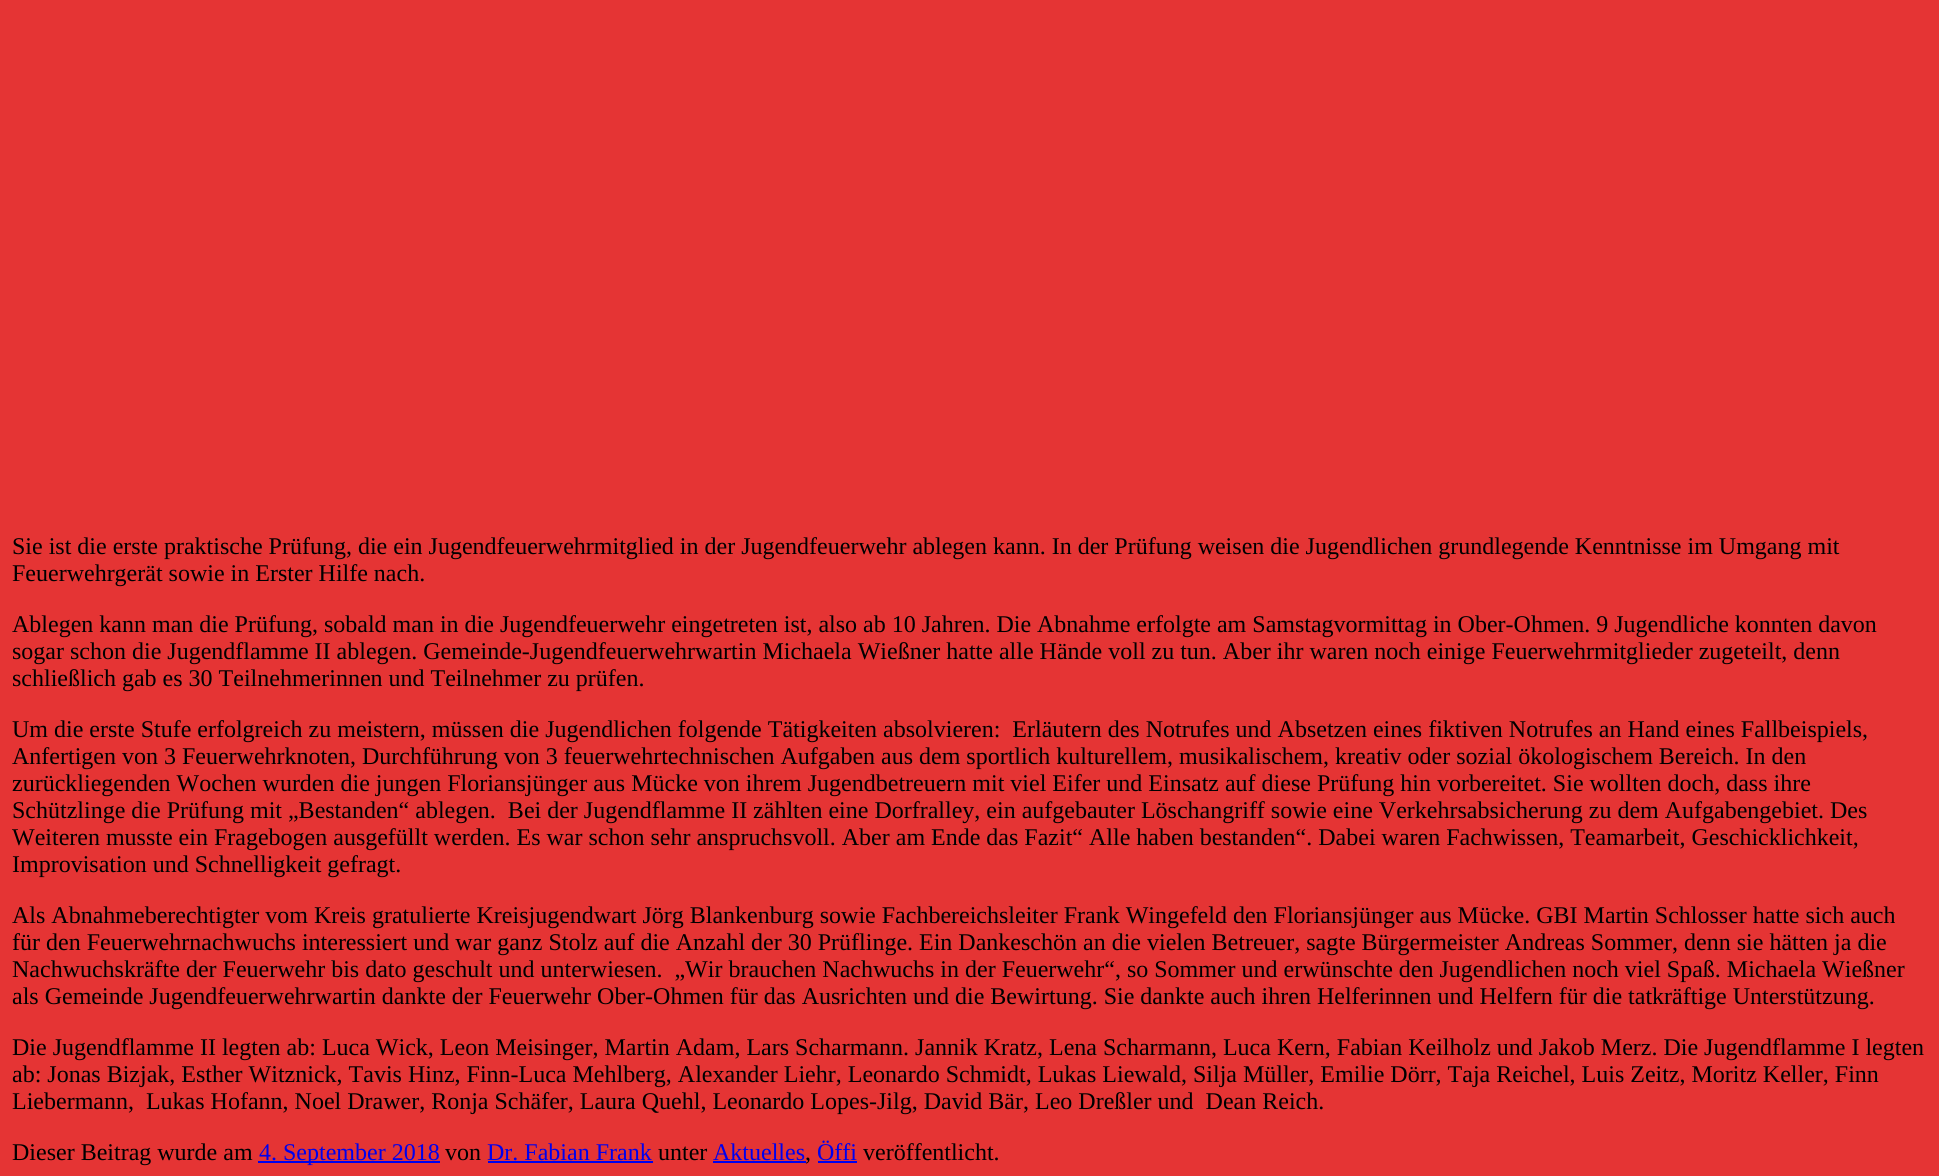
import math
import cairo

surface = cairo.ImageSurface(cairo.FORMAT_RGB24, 1939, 1176)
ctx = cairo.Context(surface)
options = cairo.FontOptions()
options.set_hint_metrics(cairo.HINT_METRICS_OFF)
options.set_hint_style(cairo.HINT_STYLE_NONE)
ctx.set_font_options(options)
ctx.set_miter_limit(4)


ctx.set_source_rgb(0.898, 0.204, 0.204)
ctx.paint()
ctx.select_font_face("Liberation Serif")
ctx.set_font_size(24)
ctx.set_source_rgb(0, 0, 0)
ctx.move_to(12, 554)
ctx.show_text("Sie ist die erste praktische Prüfung, die ein Jugendfeuerwehrmitglied in der Jugendfeuerwehr ablegen kann. In der Prüfung weisen die Jugendlichen grundlegende Kenntnisse im Umgang mit")
ctx.move_to(12, 581)
ctx.show_text("Feuerwehrgerät sowie in Erster Hilfe nach.")
ctx.move_to(12, 632)
ctx.show_text("Ablegen kann man die Prüfung, sobald man in die Jugendfeuerwehr eingetreten ist, also ab 10 Jahren. Die Abnahme erfolgte am Samstagvormittag in Ober-Ohmen. 9 Jugendliche konnten davon")
ctx.move_to(12, 659)
ctx.show_text("sogar schon die Jugendflamme II ablegen. Gemeinde-Jugendfeuerwehrwartin Michaela Wießner hatte alle Hände voll zu tun. Aber ihr waren noch einige Feuerwehrmitglieder zugeteilt, denn")
ctx.move_to(12, 686)
ctx.show_text("schließlich gab es 30 Teilnehmerinnen und Teilnehmer zu prüfen.")
ctx.move_to(12, 737)
ctx.show_text("Um die erste Stufe erfolgreich zu meistern, müssen die Jugendlichen folgende Tätigkeiten absolvieren:  Erläutern des Notrufes und Absetzen eines fiktiven Notrufes an Hand eines Fallbeispiels,")
ctx.move_to(12, 764)
ctx.show_text("Anfertigen von 3 Feuerwehrknoten, Durchführung von 3 feuerwehrtechnischen Aufgaben aus dem sportlich kulturellem, musikalischem, kreativ oder sozial ökologischem Bereich. In den")
ctx.move_to(12, 791)
ctx.show_text("zurückliegenden Wochen wurden die jungen Floriansjünger aus Mücke von ihrem Jugendbetreuern mit viel Eifer und Einsatz auf diese Prüfung hin vorbereitet. Sie wollten doch, dass ihre")
ctx.move_to(12, 818)
ctx.show_text("Schützlinge die Prüfung mit „Bestanden“ ablegen.  Bei der Jugendflamme II zählten eine Dorfralley, ein aufgebauter Löschangriff sowie eine Verkehrsabsicherung zu dem Aufgabengebiet. Des")
ctx.move_to(12, 845)
ctx.show_text("Weiteren musste ein Fragebogen ausgefüllt werden. Es war schon sehr anspruchsvoll. Aber am Ende das Fazit“ Alle haben bestanden“. Dabei waren Fachwissen, Teamarbeit, Geschicklichkeit,")
ctx.move_to(12, 872)
ctx.show_text("Improvisation und Schnelligkeit gefragt.")
ctx.move_to(12, 923)
ctx.show_text("Als Abnahmeberechtigter vom Kreis gratulierte Kreisjugendwart Jörg Blankenburg sowie Fachbereichsleiter Frank Wingefeld den Floriansjünger aus Mücke. GBI Martin Schlosser hatte sich auch")
ctx.move_to(12, 950)
ctx.show_text("für den Feuerwehrnachwuchs interessiert und war ganz Stolz auf die Anzahl der 30 Prüflinge. Ein Dankeschön an die vielen Betreuer, sagte Bürgermeister Andreas Sommer, denn sie hätten ja die")
ctx.move_to(12, 977)
ctx.show_text("Nachwuchskräfte der Feuerwehr bis dato geschult und unterwiesen.  „Wir brauchen Nachwuchs in der Feuerwehr“, so Sommer und erwünschte den Jugendlichen noch viel Spaß. Michaela Wießner")
ctx.move_to(12, 1004)
ctx.show_text("als Gemeinde Jugendfeuerwehrwartin dankte der Feuerwehr Ober-Ohmen für das Ausrichten und die Bewirtung. Sie dankte auch ihren Helferinnen und Helfern für die tatkräftige Unterstützung.")
ctx.move_to(12, 1055)
ctx.show_text("Die Jugendflamme II legten ab: Luca Wick, Leon Meisinger, Martin Adam, Lars Scharmann. Jannik Kratz, Lena Scharmann, Luca Kern, Fabian Keilholz und Jakob Merz. Die Jugendflamme I legten")
ctx.move_to(12, 1082)
ctx.show_text("ab: Jonas Bizjak, Esther Witznick, Tavis Hinz, Finn-Luca Mehlberg, Alexander Liehr, Leonardo Schmidt, Lukas Liewald, Silja Müller, Emilie Dörr, Taja Reichel, Luis Zeitz, Moritz Keller, Finn")
ctx.move_to(12, 1109)
ctx.show_text("Liebermann,  Lukas Hofann, Noel Drawer, Ronja Schäfer, Laura Quehl, Leonardo Lopes-Jilg, David Bär, Leo Dreßler und  Dean Reich.")
ctx.move_to(12, 1160)
ctx.show_text("Dieser Beitrag wurde am")
ctx.set_source_rgb(0, 0, 0.933)
ctx.rectangle(258, 1161, 182, 2)
ctx.fill()
ctx.move_to(259, 1160)
ctx.show_text("4. September 2018")
ctx.set_source_rgb(0, 0, 0)
ctx.move_to(445, 1160)
ctx.show_text("von")
ctx.set_source_rgb(0, 0, 0.933)
ctx.move_to(487, 1160)
ctx.show_text("Dr. Fabian Frank")
ctx.rectangle(488, 1161, 165, 2)
ctx.fill()
ctx.set_source_rgb(0, 0, 0)
ctx.move_to(658, 1160)
ctx.show_text("unter")
ctx.set_source_rgb(0, 0, 0.933)
ctx.move_to(713, 1160)
ctx.show_text("Aktuelles")
ctx.rectangle(713, 1161, 93, 2)
ctx.fill()
ctx.set_source_rgb(0, 0, 0)
ctx.move_to(805, 1160)
ctx.show_text(",")
ctx.set_source_rgb(0, 0, 0.933)
ctx.move_to(817, 1160)
ctx.show_text("Öffi")
ctx.rectangle(818, 1161, 39, 2)
ctx.fill()
ctx.set_source_rgb(0, 0, 0)
ctx.move_to(863, 1160)
ctx.show_text("veröffentlicht.")
surface.write_to_png("page.png")
